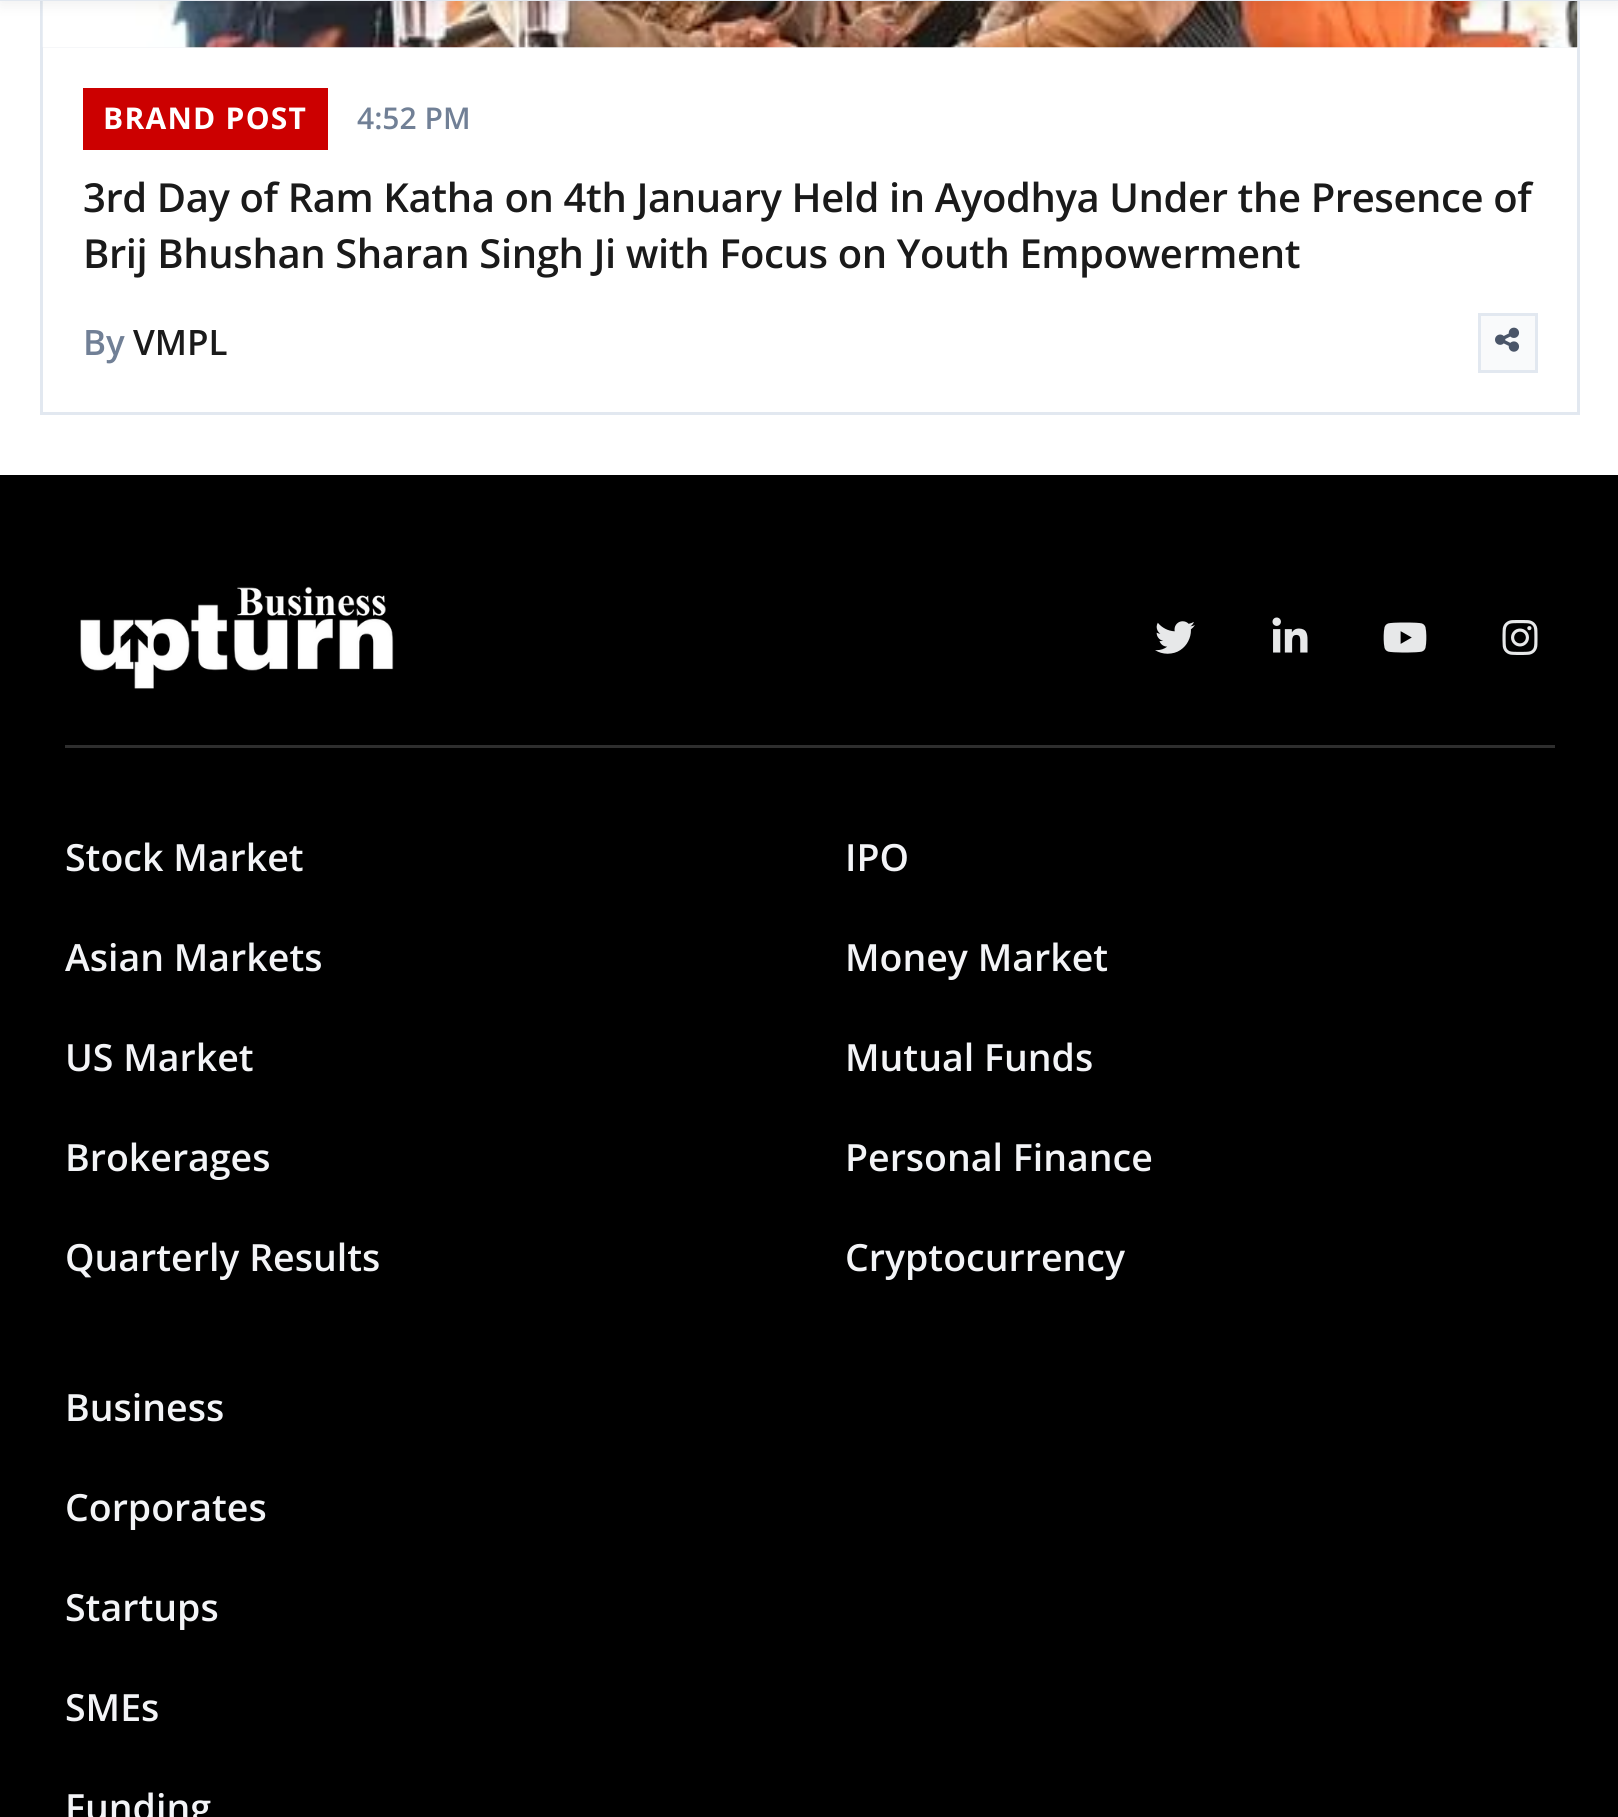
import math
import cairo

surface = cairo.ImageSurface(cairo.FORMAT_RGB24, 1618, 1817)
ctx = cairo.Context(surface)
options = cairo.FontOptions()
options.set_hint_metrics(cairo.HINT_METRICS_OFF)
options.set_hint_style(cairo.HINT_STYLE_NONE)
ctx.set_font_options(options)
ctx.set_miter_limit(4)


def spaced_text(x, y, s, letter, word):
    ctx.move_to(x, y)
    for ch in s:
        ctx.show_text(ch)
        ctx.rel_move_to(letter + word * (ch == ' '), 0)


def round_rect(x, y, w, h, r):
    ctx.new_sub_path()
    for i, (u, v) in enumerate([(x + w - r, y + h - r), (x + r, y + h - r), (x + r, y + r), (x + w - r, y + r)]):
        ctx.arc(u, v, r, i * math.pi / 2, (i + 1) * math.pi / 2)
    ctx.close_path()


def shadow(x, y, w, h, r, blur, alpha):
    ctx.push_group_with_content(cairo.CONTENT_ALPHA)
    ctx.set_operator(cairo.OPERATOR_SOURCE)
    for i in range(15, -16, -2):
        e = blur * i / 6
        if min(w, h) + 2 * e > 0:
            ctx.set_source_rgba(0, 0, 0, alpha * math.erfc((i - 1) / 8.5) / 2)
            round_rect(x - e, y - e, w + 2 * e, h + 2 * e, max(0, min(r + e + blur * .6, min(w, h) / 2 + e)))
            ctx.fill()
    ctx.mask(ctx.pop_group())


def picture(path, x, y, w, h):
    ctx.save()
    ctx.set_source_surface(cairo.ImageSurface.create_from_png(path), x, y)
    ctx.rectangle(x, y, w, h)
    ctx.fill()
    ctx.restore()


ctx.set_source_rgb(1, 1, 1)
ctx.paint()
ctx.rectangle(41.5, -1.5, 1537, 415)
ctx.set_source_rgb(0.886, 0.91, 0.941)
ctx.set_line_width(3)
ctx.stroke()
ctx.set_source_rgb(0.953, 0.957, 0.965)
ctx.rectangle(43, 1, 1535, 47)
ctx.fill()
picture("img1.png", 42, 1, 1536, 47)
ctx.set_source_rgb(0, 0, 0)
shadow(0, -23, 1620, 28, 0, 7.5, 0.06)
ctx.set_source_rgb(0.886, 0.91, 0.941)
ctx.rectangle(0, 0, 1618, 1)
ctx.fill()
ctx.set_source_rgb(0.8, 0, 0)
ctx.rectangle(83, 88, 245, 62)
ctx.fill()
ctx.select_font_face("Open Sans", cairo.FONT_SLANT_NORMAL, cairo.FONT_WEIGHT_BOLD)
ctx.set_font_size(30)
ctx.set_source_rgb(1, 1, 1)
spaced_text(103, 129, "BRAND POST", 1.25, 0)
ctx.select_font_face("Open Sans SemiBold")
ctx.set_source_rgb(0.443, 0.502, 0.588)
ctx.move_to(357, 129)
ctx.show_text("4:52 PM")
ctx.set_font_size(40)
ctx.set_source_rgb(0.102, 0.102, 0.102)
spaced_text(83, 212, "3rd Day of Ram Katha on 4th January Held in Ayodhya Under the Presence of", -0.4, 0)
spaced_text(83, 268, "Brij Bhushan Sharan Singh Ji with Focus on Youth Empowerment", -0.4, 0)
ctx.set_font_size(35)
ctx.set_source_rgb(0.443, 0.502, 0.588)
ctx.move_to(83, 355)
ctx.show_text("By")
ctx.set_source_rgb(0.102, 0.102, 0.102)
ctx.move_to(133, 355)
ctx.show_text("VMPL")
ctx.set_source_rgb(0.976, 0.98, 0.984)
ctx.rectangle(1479.5, 314.5, 57, 57)
ctx.fill_preserve()
ctx.set_source_rgb(0.886, 0.91, 0.941)
ctx.stroke()
picture("img2.png", 1495, 327, 25, 25)
ctx.set_source_rgb(0, 0, 0)
ctx.rectangle(0, 475, 1618, 1342)
ctx.fill()
ctx.set_source_rgb(0.18, 0.18, 0.18)
ctx.rectangle(65, 745, 1490, 3)
ctx.fill()
picture("img3.png", 80, 586, 314, 103)
picture("img4.png", 1155, 621, 40, 33)
picture("img5.png", 1272, 617, 36, 36)
picture("img6.png", 1383, 622, 44, 31)
picture("img7.png", 1502, 620, 36, 35)
ctx.set_font_size(37.5)
ctx.set_source_rgb(0.953, 0.957, 0.965)
ctx.move_to(65, 871)
ctx.show_text("Stock Market")
ctx.move_to(65, 971)
ctx.show_text("Asian Markets")
ctx.move_to(65, 1071)
ctx.show_text("US Market")
ctx.move_to(65, 1171)
ctx.show_text("Brokerages")
ctx.move_to(65, 1271)
ctx.show_text("Quarterly Results")
ctx.move_to(845, 871)
ctx.show_text("IPO")
ctx.move_to(845, 971)
ctx.show_text("Money Market")
ctx.move_to(845, 1071)
ctx.show_text("Mutual Funds")
ctx.move_to(845, 1171)
ctx.show_text("Personal Finance")
ctx.move_to(845, 1271)
ctx.show_text("Cryptocurrency")
ctx.move_to(65, 1421)
ctx.show_text("Business")
ctx.move_to(65, 1521)
ctx.show_text("Corporates")
ctx.move_to(65, 1621)
ctx.show_text("Startups")
ctx.move_to(65, 1721)
ctx.show_text("SMEs")
ctx.move_to(65, 1821)
ctx.show_text("Funding")
surface.write_to_png("page.png")
